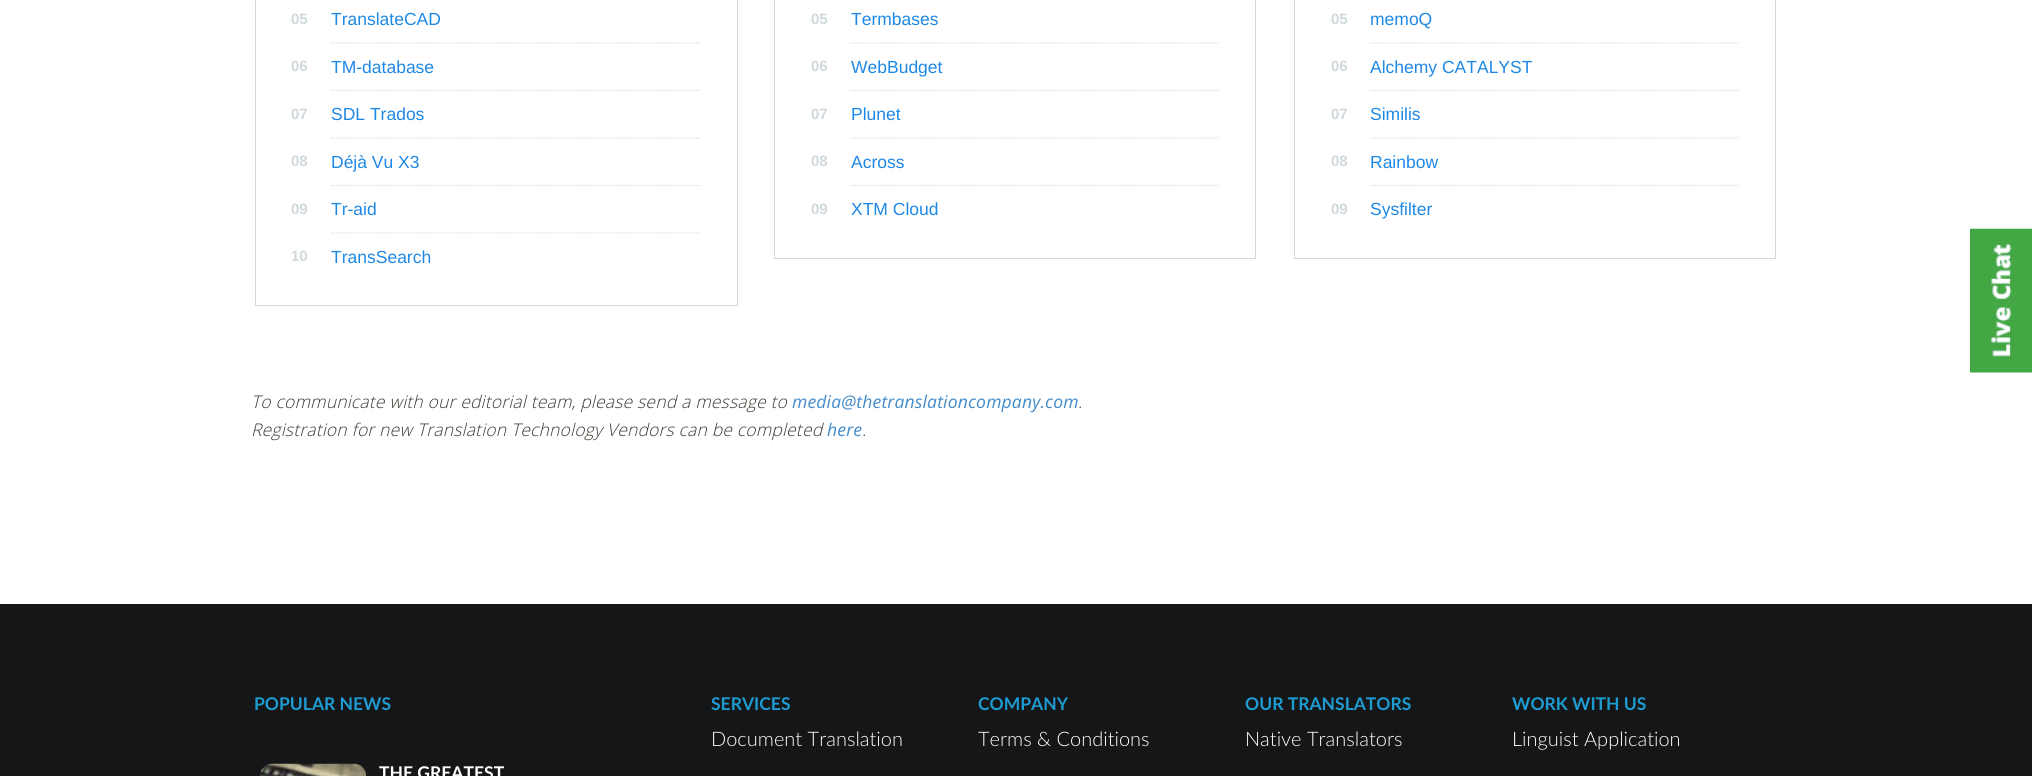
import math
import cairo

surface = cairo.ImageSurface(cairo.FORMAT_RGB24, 2032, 776)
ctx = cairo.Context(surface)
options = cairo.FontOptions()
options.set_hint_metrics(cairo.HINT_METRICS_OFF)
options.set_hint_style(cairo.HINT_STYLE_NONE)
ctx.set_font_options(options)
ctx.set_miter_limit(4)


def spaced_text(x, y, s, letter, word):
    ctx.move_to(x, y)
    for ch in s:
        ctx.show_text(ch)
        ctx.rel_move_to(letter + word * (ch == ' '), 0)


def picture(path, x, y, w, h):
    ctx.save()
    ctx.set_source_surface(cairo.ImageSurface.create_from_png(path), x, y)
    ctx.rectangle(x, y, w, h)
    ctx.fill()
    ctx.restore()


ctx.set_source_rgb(1, 1, 1)
ctx.paint()
ctx.rectangle(255.5, -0.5, 482, 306)
ctx.set_source_rgb(0.812, 0.847, 0.863)
ctx.set_line_width(1)
ctx.stroke()
ctx.select_font_face("Liberation Sans", cairo.FONT_SLANT_NORMAL, cairo.FONT_WEIGHT_BOLD)
ctx.set_font_size(15)
ctx.move_to(291, 24)
ctx.show_text("05")
ctx.new_path()
ctx.move_to(331, 43)
ctx.line_to(701, 43)
ctx.set_source_rgb(0.839, 0.871, 0.882)
ctx.set_line_width(1.2)
ctx.set_dash([1.25, 1.25])
ctx.stroke()
ctx.select_font_face("Liberation Sans")
ctx.set_font_size(17.5)
ctx.set_source_rgb(0.118, 0.533, 0.898)
ctx.move_to(331, 25)
ctx.show_text("TranslateCAD")
ctx.select_font_face("Liberation Sans", cairo.FONT_SLANT_NORMAL, cairo.FONT_WEIGHT_BOLD)
ctx.set_font_size(15)
ctx.set_source_rgb(0.812, 0.847, 0.863)
ctx.move_to(291, 71)
ctx.show_text("06")
ctx.new_path()
ctx.move_to(331, 90.5)
ctx.line_to(701, 90.5)
ctx.set_source_rgb(0.839, 0.871, 0.882)
ctx.stroke()
ctx.select_font_face("Liberation Sans")
ctx.set_font_size(17.5)
ctx.set_source_rgb(0.118, 0.533, 0.898)
ctx.move_to(331, 73)
ctx.show_text("TM-database")
ctx.select_font_face("Liberation Sans", cairo.FONT_SLANT_NORMAL, cairo.FONT_WEIGHT_BOLD)
ctx.set_font_size(15)
ctx.set_source_rgb(0.812, 0.847, 0.863)
ctx.move_to(291, 119)
ctx.show_text("07")
ctx.new_path()
ctx.move_to(331, 138)
ctx.line_to(701, 138)
ctx.set_source_rgb(0.839, 0.871, 0.882)
ctx.stroke()
ctx.select_font_face("Liberation Sans")
ctx.set_font_size(17.5)
ctx.set_source_rgb(0.118, 0.533, 0.898)
ctx.move_to(331, 120)
ctx.show_text("SDL Trados")
ctx.select_font_face("Liberation Sans", cairo.FONT_SLANT_NORMAL, cairo.FONT_WEIGHT_BOLD)
ctx.set_font_size(15)
ctx.set_source_rgb(0.812, 0.847, 0.863)
ctx.move_to(291, 166)
ctx.show_text("08")
ctx.new_path()
ctx.move_to(331, 185.5)
ctx.line_to(701, 185.5)
ctx.set_source_rgb(0.839, 0.871, 0.882)
ctx.stroke()
ctx.select_font_face("Liberation Sans")
ctx.set_font_size(17.5)
ctx.set_source_rgb(0.118, 0.533, 0.898)
ctx.move_to(331, 168)
ctx.show_text("Déjà Vu X3")
ctx.select_font_face("Liberation Sans", cairo.FONT_SLANT_NORMAL, cairo.FONT_WEIGHT_BOLD)
ctx.set_font_size(15)
ctx.set_source_rgb(0.812, 0.847, 0.863)
ctx.move_to(291, 214)
ctx.show_text("09")
ctx.new_path()
ctx.move_to(331, 233)
ctx.line_to(701, 233)
ctx.set_source_rgb(0.839, 0.871, 0.882)
ctx.stroke()
ctx.select_font_face("Liberation Sans")
ctx.set_font_size(17.5)
ctx.set_source_rgb(0.118, 0.533, 0.898)
ctx.move_to(331, 215)
ctx.show_text("Tr-aid")
ctx.select_font_face("Liberation Sans", cairo.FONT_SLANT_NORMAL, cairo.FONT_WEIGHT_BOLD)
ctx.set_font_size(15)
ctx.set_source_rgb(0.812, 0.847, 0.863)
ctx.move_to(291, 261)
ctx.show_text("10")
ctx.select_font_face("Liberation Sans")
ctx.set_font_size(17.5)
ctx.set_source_rgb(0.118, 0.533, 0.898)
ctx.move_to(331, 263)
ctx.show_text("TransSearch")
ctx.rectangle(774.5, -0.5, 481, 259)
ctx.set_source_rgb(0.812, 0.847, 0.863)
ctx.set_line_width(1)
ctx.set_dash([])
ctx.stroke()
ctx.select_font_face("Liberation Sans", cairo.FONT_SLANT_NORMAL, cairo.FONT_WEIGHT_BOLD)
ctx.set_font_size(15)
ctx.move_to(811, 24)
ctx.show_text("05")
ctx.new_path()
ctx.move_to(850, 43)
ctx.line_to(1220, 43)
ctx.set_source_rgb(0.839, 0.871, 0.882)
ctx.set_line_width(1.2)
ctx.set_dash([1.25, 1.25])
ctx.stroke()
ctx.select_font_face("Liberation Sans")
ctx.set_font_size(17.5)
ctx.set_source_rgb(0.118, 0.533, 0.898)
ctx.move_to(851, 25)
ctx.show_text("Termbases")
ctx.select_font_face("Liberation Sans", cairo.FONT_SLANT_NORMAL, cairo.FONT_WEIGHT_BOLD)
ctx.set_font_size(15)
ctx.set_source_rgb(0.812, 0.847, 0.863)
ctx.move_to(811, 71)
ctx.show_text("06")
ctx.new_path()
ctx.move_to(850, 90.5)
ctx.line_to(1220, 90.5)
ctx.set_source_rgb(0.839, 0.871, 0.882)
ctx.stroke()
ctx.select_font_face("Liberation Sans")
ctx.set_font_size(17.5)
ctx.set_source_rgb(0.118, 0.533, 0.898)
ctx.move_to(851, 73)
ctx.show_text("WebBudget")
ctx.select_font_face("Liberation Sans", cairo.FONT_SLANT_NORMAL, cairo.FONT_WEIGHT_BOLD)
ctx.set_font_size(15)
ctx.set_source_rgb(0.812, 0.847, 0.863)
ctx.move_to(811, 119)
ctx.show_text("07")
ctx.new_path()
ctx.move_to(850, 138)
ctx.line_to(1220, 138)
ctx.set_source_rgb(0.839, 0.871, 0.882)
ctx.stroke()
ctx.select_font_face("Liberation Sans")
ctx.set_font_size(17.5)
ctx.set_source_rgb(0.118, 0.533, 0.898)
ctx.move_to(851, 120)
ctx.show_text("Plunet")
ctx.select_font_face("Liberation Sans", cairo.FONT_SLANT_NORMAL, cairo.FONT_WEIGHT_BOLD)
ctx.set_font_size(15)
ctx.set_source_rgb(0.812, 0.847, 0.863)
ctx.move_to(811, 166)
ctx.show_text("08")
ctx.new_path()
ctx.move_to(850, 185.5)
ctx.line_to(1220, 185.5)
ctx.set_source_rgb(0.839, 0.871, 0.882)
ctx.stroke()
ctx.select_font_face("Liberation Sans")
ctx.set_font_size(17.5)
ctx.set_source_rgb(0.118, 0.533, 0.898)
ctx.move_to(851, 168)
ctx.show_text("Across")
ctx.select_font_face("Liberation Sans", cairo.FONT_SLANT_NORMAL, cairo.FONT_WEIGHT_BOLD)
ctx.set_font_size(15)
ctx.set_source_rgb(0.812, 0.847, 0.863)
ctx.move_to(811, 214)
ctx.show_text("09")
ctx.select_font_face("Liberation Sans")
ctx.set_font_size(17.5)
ctx.set_source_rgb(0.118, 0.533, 0.898)
ctx.move_to(851, 215)
ctx.show_text("XTM Cloud")
ctx.rectangle(1294.5, -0.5, 481, 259)
ctx.set_source_rgb(0.812, 0.847, 0.863)
ctx.set_line_width(1)
ctx.set_dash([])
ctx.stroke()
ctx.select_font_face("Liberation Sans", cairo.FONT_SLANT_NORMAL, cairo.FONT_WEIGHT_BOLD)
ctx.set_font_size(15)
ctx.move_to(1331, 24)
ctx.show_text("05")
ctx.new_path()
ctx.move_to(1370, 43)
ctx.line_to(1740, 43)
ctx.set_source_rgb(0.839, 0.871, 0.882)
ctx.set_line_width(1.2)
ctx.set_dash([1.25, 1.25])
ctx.stroke()
ctx.select_font_face("Liberation Sans")
ctx.set_font_size(17.5)
ctx.set_source_rgb(0.118, 0.533, 0.898)
ctx.move_to(1370, 25)
ctx.show_text("memoQ")
ctx.select_font_face("Liberation Sans", cairo.FONT_SLANT_NORMAL, cairo.FONT_WEIGHT_BOLD)
ctx.set_font_size(15)
ctx.set_source_rgb(0.812, 0.847, 0.863)
ctx.move_to(1331, 71)
ctx.show_text("06")
ctx.new_path()
ctx.move_to(1370, 90.5)
ctx.line_to(1740, 90.5)
ctx.set_source_rgb(0.839, 0.871, 0.882)
ctx.stroke()
ctx.select_font_face("Liberation Sans")
ctx.set_font_size(17.5)
ctx.set_source_rgb(0.118, 0.533, 0.898)
ctx.move_to(1370, 73)
ctx.show_text("Alchemy CATALYST")
ctx.select_font_face("Liberation Sans", cairo.FONT_SLANT_NORMAL, cairo.FONT_WEIGHT_BOLD)
ctx.set_font_size(15)
ctx.set_source_rgb(0.812, 0.847, 0.863)
ctx.move_to(1331, 119)
ctx.show_text("07")
ctx.new_path()
ctx.move_to(1370, 138)
ctx.line_to(1740, 138)
ctx.set_source_rgb(0.839, 0.871, 0.882)
ctx.stroke()
ctx.select_font_face("Liberation Sans")
ctx.set_font_size(17.5)
ctx.set_source_rgb(0.118, 0.533, 0.898)
ctx.move_to(1370, 120)
ctx.show_text("Similis")
ctx.select_font_face("Liberation Sans", cairo.FONT_SLANT_NORMAL, cairo.FONT_WEIGHT_BOLD)
ctx.set_font_size(15)
ctx.set_source_rgb(0.812, 0.847, 0.863)
ctx.move_to(1331, 166)
ctx.show_text("08")
ctx.new_path()
ctx.move_to(1370, 185.5)
ctx.line_to(1740, 185.5)
ctx.set_source_rgb(0.839, 0.871, 0.882)
ctx.stroke()
ctx.select_font_face("Liberation Sans")
ctx.set_font_size(17.5)
ctx.set_source_rgb(0.118, 0.533, 0.898)
ctx.move_to(1370, 168)
ctx.show_text("Rainbow")
ctx.select_font_face("Liberation Sans", cairo.FONT_SLANT_NORMAL, cairo.FONT_WEIGHT_BOLD)
ctx.set_font_size(15)
ctx.set_source_rgb(0.812, 0.847, 0.863)
ctx.move_to(1331, 214)
ctx.show_text("09")
ctx.select_font_face("Liberation Sans")
ctx.set_font_size(17.5)
ctx.set_source_rgb(0.118, 0.533, 0.898)
ctx.move_to(1370, 215)
ctx.show_text("Sysfilter")
ctx.select_font_face("Open Sans Light", cairo.FONT_SLANT_ITALIC)
ctx.set_source_rgb(0.235, 0.235, 0.208)
spaced_text(251, 408, "To communicate with our editorial team, please send a message to", 0.18, 0)
ctx.select_font_face("Open Sans", cairo.FONT_SLANT_ITALIC)
ctx.set_source_rgb(0.259, 0.545, 0.792)
spaced_text(792, 408, "media@thetranslationcompany.com", 0.18, 0)
ctx.select_font_face("Open Sans Light", cairo.FONT_SLANT_ITALIC)
ctx.set_source_rgb(0.235, 0.235, 0.208)
spaced_text(1078, 408, ".", 0.18, 0)
spaced_text(251, 436, "Registration for new Translation Technology Vendors can be completed", 0.18, 0)
ctx.select_font_face("Open Sans", cairo.FONT_SLANT_ITALIC)
ctx.set_source_rgb(0.259, 0.545, 0.792)
spaced_text(827, 436, "here", 0.18, 0)
ctx.select_font_face("Open Sans Light", cairo.FONT_SLANT_ITALIC)
ctx.set_source_rgb(0.235, 0.235, 0.208)
spaced_text(862, 436, ".", 0.18, 0)
picture("img1.png", 1970, 228, 62, 145)
ctx.set_source_rgb(0.082, 0.086, 0.094)
ctx.rectangle(0, 604, 2032, 172)
ctx.fill()
ctx.select_font_face("Lato", cairo.FONT_SLANT_NORMAL, cairo.FONT_WEIGHT_BOLD)
ctx.set_source_rgb(0.118, 0.608, 0.816)
ctx.move_to(254, 710)
ctx.show_text("POPULAR NEWS")
picture("img2.png", 260, 763, 107, 13)
ctx.set_source_rgb(1, 1, 1)
ctx.move_to(379, 779)
ctx.show_text("THE GREATEST")
ctx.set_source_rgb(0.118, 0.608, 0.816)
ctx.move_to(711, 710)
ctx.show_text("SERVICES")
ctx.select_font_face("Lato Light")
ctx.set_font_size(20)
ctx.set_source_rgb(1, 1, 1)
ctx.move_to(711, 746)
ctx.show_text("Document Translation")
ctx.select_font_face("Lato", cairo.FONT_SLANT_NORMAL, cairo.FONT_WEIGHT_BOLD)
ctx.set_font_size(17.5)
ctx.set_source_rgb(0.118, 0.608, 0.816)
ctx.move_to(978, 710)
ctx.show_text("COMPANY")
ctx.select_font_face("Lato Light")
ctx.set_font_size(20)
ctx.set_source_rgb(1, 1, 1)
ctx.move_to(978, 746)
ctx.show_text("Terms & Conditions")
ctx.select_font_face("Lato", cairo.FONT_SLANT_NORMAL, cairo.FONT_WEIGHT_BOLD)
ctx.set_font_size(17.5)
ctx.set_source_rgb(0.118, 0.608, 0.816)
ctx.move_to(1245, 710)
ctx.show_text("OUR TRANSLATORS")
ctx.select_font_face("Lato Light")
ctx.set_font_size(20)
ctx.set_source_rgb(1, 1, 1)
ctx.move_to(1245, 746)
ctx.show_text("Native Translators")
ctx.select_font_face("Lato", cairo.FONT_SLANT_NORMAL, cairo.FONT_WEIGHT_BOLD)
ctx.set_font_size(17.5)
ctx.set_source_rgb(0.118, 0.608, 0.816)
ctx.move_to(1512, 710)
ctx.show_text("WORK WITH US")
ctx.select_font_face("Lato Light")
ctx.set_font_size(20)
ctx.set_source_rgb(1, 1, 1)
ctx.move_to(1512, 746)
ctx.show_text("Linguist Application")
surface.write_to_png("page.png")
